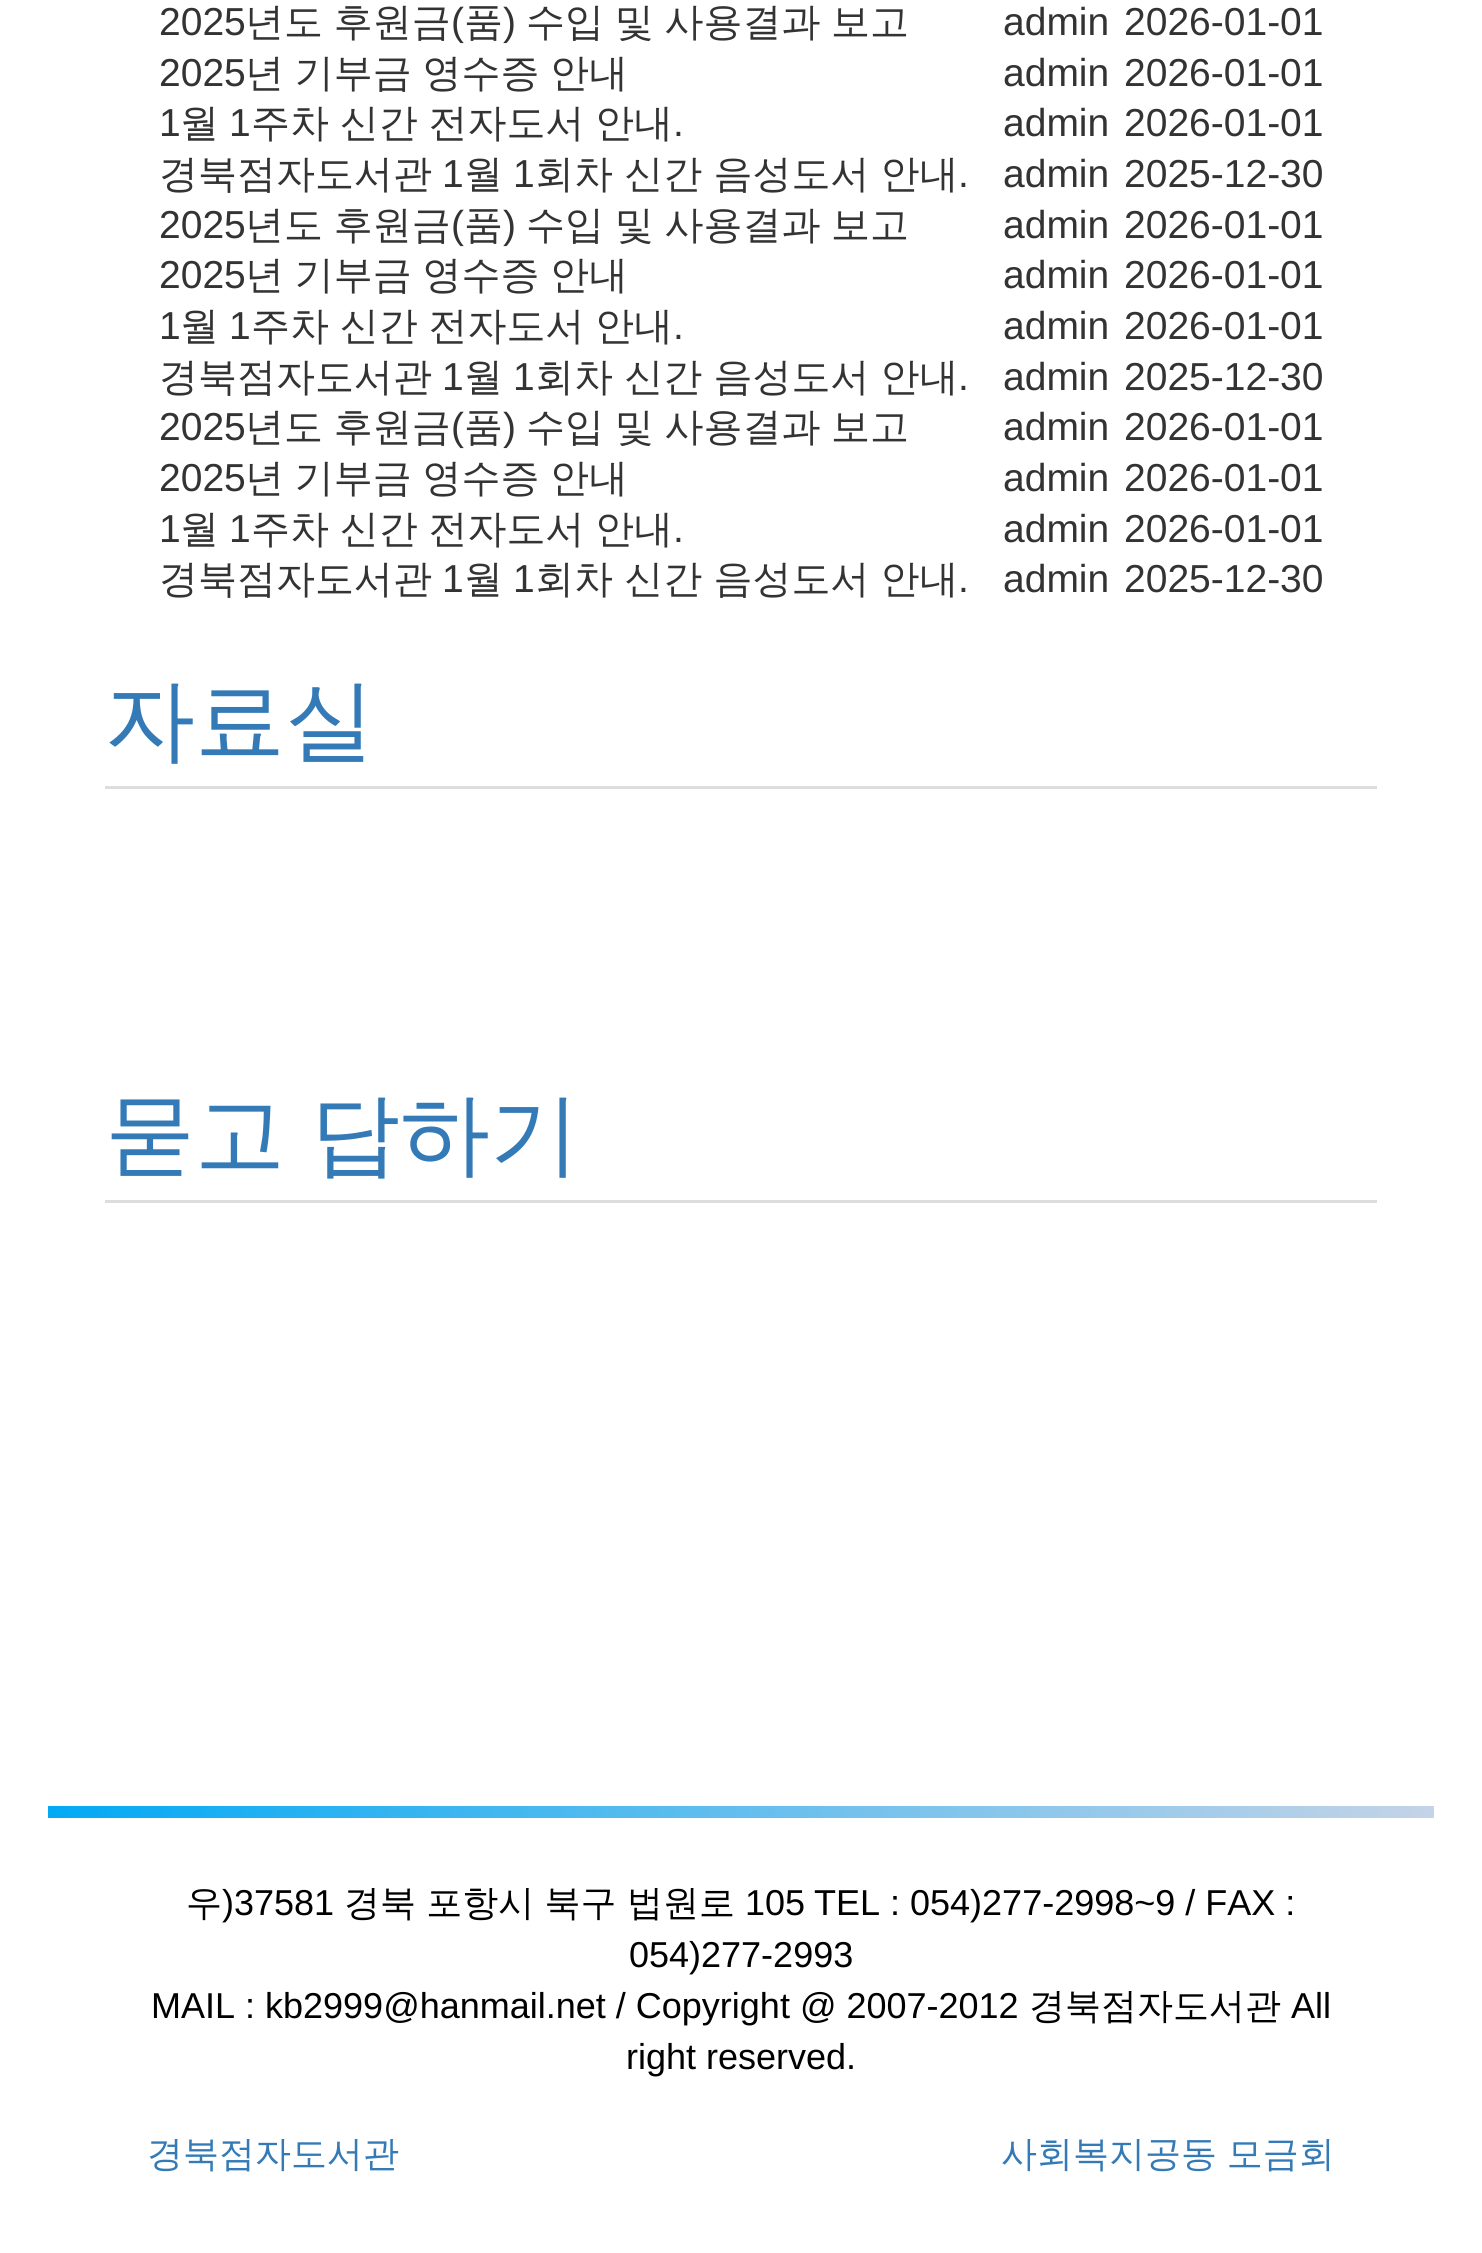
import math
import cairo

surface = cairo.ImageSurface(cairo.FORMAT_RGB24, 1482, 2253)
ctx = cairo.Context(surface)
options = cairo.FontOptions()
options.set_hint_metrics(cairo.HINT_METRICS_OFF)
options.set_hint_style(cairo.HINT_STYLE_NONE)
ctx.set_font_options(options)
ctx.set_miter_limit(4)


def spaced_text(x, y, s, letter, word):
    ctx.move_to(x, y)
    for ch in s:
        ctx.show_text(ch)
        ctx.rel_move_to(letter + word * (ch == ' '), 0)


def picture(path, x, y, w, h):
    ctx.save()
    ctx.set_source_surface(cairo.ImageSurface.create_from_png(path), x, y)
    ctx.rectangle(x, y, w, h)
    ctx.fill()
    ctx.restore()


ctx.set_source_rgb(1, 1, 1)
ctx.paint()
ctx.select_font_face("Liberation Sans")
ctx.set_font_size(39)
ctx.set_source_rgb(0.2, 0.2, 0.2)
ctx.move_to(159, 35)
ctx.show_text("2025")
ctx.select_font_face("WenQuanYi Zen Hei Medium")
spaced_text(245, 35, "년도 후원금", 0, -1)
ctx.select_font_face("Liberation Sans")
ctx.move_to(451, 35)
ctx.show_text("(")
ctx.select_font_face("WenQuanYi Zen Hei Medium")
ctx.move_to(464, 35)
ctx.show_text("품")
ctx.select_font_face("Liberation Sans")
ctx.move_to(503, 35)
ctx.show_text(")")
ctx.select_font_face("WenQuanYi Zen Hei Medium")
spaced_text(526, 35, "수입 및 사용결과 보고", 0, -1)
ctx.select_font_face("Liberation Sans")
ctx.move_to(1003, 35)
ctx.show_text("admin")
ctx.move_to(1124, 35)
ctx.show_text("2026-01-01")
ctx.move_to(159, 86)
ctx.show_text("2025")
ctx.select_font_face("WenQuanYi Zen Hei Medium")
spaced_text(245, 86, "년 기부금 영수증 안내", 0, -1)
ctx.select_font_face("Liberation Sans")
ctx.move_to(1003, 86)
ctx.show_text("admin")
ctx.move_to(1124, 86)
ctx.show_text("2026-01-01")
ctx.move_to(159, 136)
ctx.show_text("1")
ctx.select_font_face("WenQuanYi Zen Hei Medium")
ctx.move_to(180, 136)
ctx.show_text("월")
ctx.select_font_face("Liberation Sans")
ctx.move_to(229, 136)
ctx.show_text("1")
ctx.select_font_face("WenQuanYi Zen Hei Medium")
spaced_text(251, 136, "주차 신간 전자도서 안내", 0, -1)
ctx.select_font_face("Liberation Sans")
ctx.move_to(673, 136)
ctx.show_text(".")
ctx.move_to(1003, 136)
ctx.show_text("admin")
ctx.move_to(1124, 136)
ctx.show_text("2026-01-01")
ctx.select_font_face("WenQuanYi Zen Hei Medium")
ctx.move_to(159, 187)
ctx.show_text("경북점자도서관")
ctx.select_font_face("Liberation Sans")
ctx.move_to(442, 187)
ctx.show_text("1")
ctx.select_font_face("WenQuanYi Zen Hei Medium")
ctx.move_to(464, 187)
ctx.show_text("월")
ctx.select_font_face("Liberation Sans")
ctx.move_to(513, 187)
ctx.show_text("1")
ctx.select_font_face("WenQuanYi Zen Hei Medium")
spaced_text(535, 187, "회차 신간 음성도서 안내", 0, -0.5)
ctx.select_font_face("Liberation Sans")
ctx.move_to(958, 187)
ctx.show_text(".")
ctx.move_to(1003, 187)
ctx.show_text("admin")
ctx.move_to(1124, 187)
ctx.show_text("2025-12-30")
ctx.move_to(159, 238)
ctx.show_text("2025")
ctx.select_font_face("WenQuanYi Zen Hei Medium")
spaced_text(245, 238, "년도 후원금", 0, -1)
ctx.select_font_face("Liberation Sans")
ctx.move_to(451, 238)
ctx.show_text("(")
ctx.select_font_face("WenQuanYi Zen Hei Medium")
ctx.move_to(464, 238)
ctx.show_text("품")
ctx.select_font_face("Liberation Sans")
ctx.move_to(503, 238)
ctx.show_text(")")
ctx.select_font_face("WenQuanYi Zen Hei Medium")
spaced_text(526, 238, "수입 및 사용결과 보고", 0, -1)
ctx.select_font_face("Liberation Sans")
ctx.move_to(1003, 238)
ctx.show_text("admin")
ctx.move_to(1124, 238)
ctx.show_text("2026-01-01")
ctx.move_to(159, 288)
ctx.show_text("2025")
ctx.select_font_face("WenQuanYi Zen Hei Medium")
spaced_text(245, 288, "년 기부금 영수증 안내", 0, -1)
ctx.select_font_face("Liberation Sans")
ctx.move_to(1003, 288)
ctx.show_text("admin")
ctx.move_to(1124, 288)
ctx.show_text("2026-01-01")
ctx.move_to(159, 339)
ctx.show_text("1")
ctx.select_font_face("WenQuanYi Zen Hei Medium")
ctx.move_to(180, 339)
ctx.show_text("월")
ctx.select_font_face("Liberation Sans")
ctx.move_to(229, 339)
ctx.show_text("1")
ctx.select_font_face("WenQuanYi Zen Hei Medium")
spaced_text(251, 339, "주차 신간 전자도서 안내", 0, -1)
ctx.select_font_face("Liberation Sans")
ctx.move_to(673, 339)
ctx.show_text(".")
ctx.move_to(1003, 339)
ctx.show_text("admin")
ctx.move_to(1124, 339)
ctx.show_text("2026-01-01")
ctx.select_font_face("WenQuanYi Zen Hei Medium")
ctx.move_to(159, 390)
ctx.show_text("경북점자도서관")
ctx.select_font_face("Liberation Sans")
ctx.move_to(442, 390)
ctx.show_text("1")
ctx.select_font_face("WenQuanYi Zen Hei Medium")
ctx.move_to(464, 390)
ctx.show_text("월")
ctx.select_font_face("Liberation Sans")
ctx.move_to(513, 390)
ctx.show_text("1")
ctx.select_font_face("WenQuanYi Zen Hei Medium")
spaced_text(535, 390, "회차 신간 음성도서 안내", 0, -0.5)
ctx.select_font_face("Liberation Sans")
ctx.move_to(958, 390)
ctx.show_text(".")
ctx.move_to(1003, 390)
ctx.show_text("admin")
ctx.move_to(1124, 390)
ctx.show_text("2025-12-30")
ctx.move_to(159, 440)
ctx.show_text("2025")
ctx.select_font_face("WenQuanYi Zen Hei Medium")
spaced_text(245, 440, "년도 후원금", 0, -1)
ctx.select_font_face("Liberation Sans")
ctx.move_to(451, 440)
ctx.show_text("(")
ctx.select_font_face("WenQuanYi Zen Hei Medium")
ctx.move_to(464, 440)
ctx.show_text("품")
ctx.select_font_face("Liberation Sans")
ctx.move_to(503, 440)
ctx.show_text(")")
ctx.select_font_face("WenQuanYi Zen Hei Medium")
spaced_text(526, 440, "수입 및 사용결과 보고", 0, -1)
ctx.select_font_face("Liberation Sans")
ctx.move_to(1003, 440)
ctx.show_text("admin")
ctx.move_to(1124, 440)
ctx.show_text("2026-01-01")
ctx.move_to(159, 491)
ctx.show_text("2025")
ctx.select_font_face("WenQuanYi Zen Hei Medium")
spaced_text(245, 491, "년 기부금 영수증 안내", 0, -1)
ctx.select_font_face("Liberation Sans")
ctx.move_to(1003, 491)
ctx.show_text("admin")
ctx.move_to(1124, 491)
ctx.show_text("2026-01-01")
ctx.move_to(159, 542)
ctx.show_text("1")
ctx.select_font_face("WenQuanYi Zen Hei Medium")
ctx.move_to(180, 542)
ctx.show_text("월")
ctx.select_font_face("Liberation Sans")
ctx.move_to(229, 542)
ctx.show_text("1")
ctx.select_font_face("WenQuanYi Zen Hei Medium")
spaced_text(251, 542, "주차 신간 전자도서 안내", 0, -1)
ctx.select_font_face("Liberation Sans")
ctx.move_to(673, 542)
ctx.show_text(".")
ctx.move_to(1003, 542)
ctx.show_text("admin")
ctx.move_to(1124, 542)
ctx.show_text("2026-01-01")
ctx.select_font_face("WenQuanYi Zen Hei Medium")
ctx.move_to(159, 592)
ctx.show_text("경북점자도서관")
ctx.select_font_face("Liberation Sans")
ctx.move_to(442, 592)
ctx.show_text("1")
ctx.select_font_face("WenQuanYi Zen Hei Medium")
ctx.move_to(464, 592)
ctx.show_text("월")
ctx.select_font_face("Liberation Sans")
ctx.move_to(513, 592)
ctx.show_text("1")
ctx.select_font_face("WenQuanYi Zen Hei Medium")
spaced_text(535, 592, "회차 신간 음성도서 안내", 0, -0.5)
ctx.select_font_face("Liberation Sans")
ctx.move_to(958, 592)
ctx.show_text(".")
ctx.move_to(1003, 592)
ctx.show_text("admin")
ctx.move_to(1124, 592)
ctx.show_text("2025-12-30")
ctx.set_source_rgb(0.867, 0.867, 0.867)
ctx.rectangle(105, 786, 1272, 3)
ctx.fill()
ctx.select_font_face("WenQuanYi Zen Hei Medium")
ctx.set_font_size(90)
ctx.set_source_rgb(0.2, 0.478, 0.718)
ctx.move_to(105, 751)
ctx.show_text("자료실")
ctx.set_source_rgb(0.867, 0.867, 0.867)
ctx.rectangle(105, 1200, 1272, 3)
ctx.fill()
ctx.set_source_rgb(0.2, 0.478, 0.718)
spaced_text(105, 1165, "묻고 답하기", 0, -2)
picture("img1.png", 48, 1806, 1386, 12)
ctx.set_font_size(36)
ctx.set_source_rgb(0, 0, 0)
ctx.move_to(186, 1915)
ctx.show_text("우")
ctx.select_font_face("Liberation Sans")
ctx.move_to(222, 1915)
ctx.show_text(")37581")
ctx.select_font_face("WenQuanYi Zen Hei Medium")
spaced_text(344, 1915, "경북 포항시 북구 법원로", 0, -0.5)
ctx.select_font_face("Liberation Sans")
ctx.move_to(745, 1915)
ctx.show_text("105")
ctx.move_to(814, 1915)
ctx.show_text("TEL : 054)277-2998~9 / FAX :")
ctx.move_to(629, 1967)
ctx.show_text("054)277-2993")
ctx.move_to(151, 2018)
ctx.show_text("MAIL : kb2999@hanmail.net / Copyright @ 2007-2012")
ctx.select_font_face("WenQuanYi Zen Hei Medium")
ctx.move_to(1029, 2018)
ctx.show_text("경북점자도서관")
ctx.select_font_face("Liberation Sans")
ctx.move_to(1291, 2018)
ctx.show_text("All")
ctx.move_to(626, 2069)
ctx.show_text("right reserved.")
ctx.select_font_face("WenQuanYi Zen Hei Medium")
ctx.set_source_rgb(0.2, 0.478, 0.718)
ctx.move_to(147, 2166)
ctx.show_text("경북점자도서관")
spaced_text(1001, 2166, "사회복지공동 모금회", 0, -1)
surface.write_to_png("page.png")
